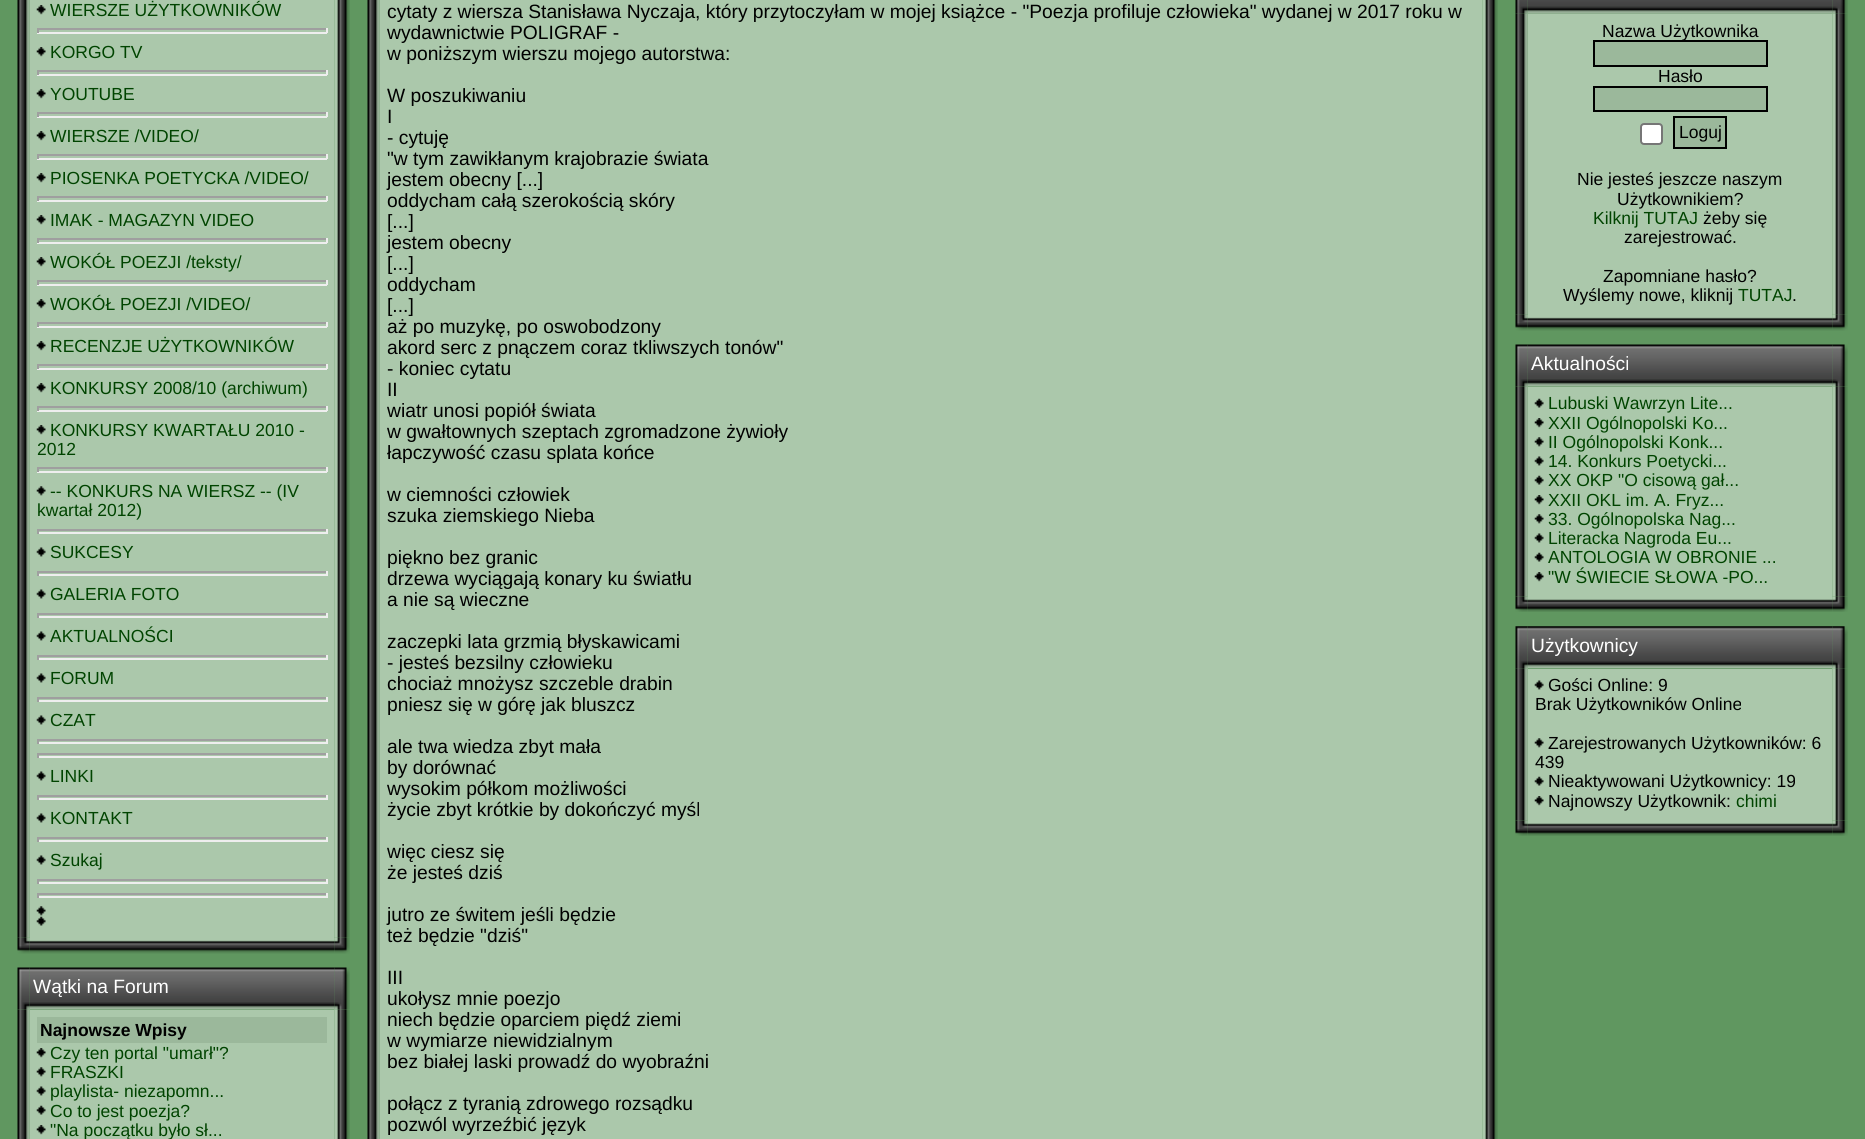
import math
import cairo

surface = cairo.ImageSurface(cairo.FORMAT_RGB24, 1865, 1139)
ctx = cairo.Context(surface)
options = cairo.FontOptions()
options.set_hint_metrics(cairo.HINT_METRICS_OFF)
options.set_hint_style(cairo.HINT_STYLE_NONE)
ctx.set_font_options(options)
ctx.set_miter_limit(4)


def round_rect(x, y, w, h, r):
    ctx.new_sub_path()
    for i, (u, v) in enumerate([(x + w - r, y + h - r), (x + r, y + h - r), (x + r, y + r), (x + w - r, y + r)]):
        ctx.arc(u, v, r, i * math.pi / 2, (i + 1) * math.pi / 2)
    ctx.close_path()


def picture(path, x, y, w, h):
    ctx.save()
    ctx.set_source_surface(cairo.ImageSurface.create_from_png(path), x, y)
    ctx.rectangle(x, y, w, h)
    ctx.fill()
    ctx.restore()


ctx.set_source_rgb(0.376, 0.592, 0.376)
ctx.paint()
picture("img1.png", 17, 0, 13, 938)
ctx.set_source_rgb(0.671, 0.784, 0.671)
ctx.rectangle(30, 0, 304, 938)
ctx.fill()
picture("img2.png", 36, 5, 10, 10)
ctx.select_font_face("Liberation Sans")
ctx.set_font_size(17.5)
ctx.set_source_rgb(0, 0.267, 0)
ctx.move_to(50, 16)
ctx.show_text("WIERSZE UŻYTKOWNIKÓW")
ctx.set_source_rgb(0.624, 0.624, 0.624)
ctx.rectangle(37, 28, 290, 2)
ctx.fill()
ctx.set_source_rgb(0.933, 0.933, 0.933)
ctx.rectangle(326, 28, 2, 5)
ctx.fill()
ctx.rectangle(37, 32, 290, 2)
ctx.fill()
ctx.set_source_rgb(0.624, 0.624, 0.624)
ctx.rectangle(37, 28, 2, 5)
ctx.fill()
picture("img2.png", 36, 47, 10, 10)
ctx.set_source_rgb(0, 0.267, 0)
ctx.move_to(50, 58)
ctx.show_text("KORGO TV")
ctx.set_source_rgb(0.624, 0.624, 0.624)
ctx.rectangle(37, 70, 290, 2)
ctx.fill()
ctx.set_source_rgb(0.933, 0.933, 0.933)
ctx.rectangle(326, 70, 2, 5)
ctx.fill()
ctx.rectangle(37, 74, 290, 2)
ctx.fill()
ctx.set_source_rgb(0.624, 0.624, 0.624)
ctx.rectangle(37, 70, 2, 5)
ctx.fill()
picture("img2.png", 36, 89, 10, 10)
ctx.set_source_rgb(0, 0.267, 0)
ctx.move_to(50, 100)
ctx.show_text("YOUTUBE")
ctx.set_source_rgb(0.624, 0.624, 0.624)
ctx.rectangle(37, 112, 290, 2)
ctx.fill()
ctx.set_source_rgb(0.933, 0.933, 0.933)
ctx.rectangle(326, 112, 2, 5)
ctx.fill()
ctx.rectangle(37, 116, 290, 2)
ctx.fill()
ctx.set_source_rgb(0.624, 0.624, 0.624)
ctx.rectangle(37, 112, 2, 5)
ctx.fill()
picture("img2.png", 36, 131, 10, 10)
ctx.set_source_rgb(0, 0.267, 0)
ctx.move_to(50, 142)
ctx.show_text("WIERSZE /VIDEO/")
ctx.set_source_rgb(0.624, 0.624, 0.624)
ctx.rectangle(37, 154, 290, 2)
ctx.fill()
ctx.set_source_rgb(0.933, 0.933, 0.933)
ctx.rectangle(326, 154, 2, 5)
ctx.fill()
ctx.rectangle(37, 158, 290, 2)
ctx.fill()
ctx.set_source_rgb(0.624, 0.624, 0.624)
ctx.rectangle(37, 154, 2, 5)
ctx.fill()
picture("img2.png", 36, 173, 10, 10)
ctx.set_source_rgb(0, 0.267, 0)
ctx.move_to(50, 184)
ctx.show_text("PIOSENKA POETYCKA /VIDEO/")
ctx.set_source_rgb(0.624, 0.624, 0.624)
ctx.rectangle(37, 196, 290, 2)
ctx.fill()
ctx.set_source_rgb(0.933, 0.933, 0.933)
ctx.rectangle(326, 196, 2, 5)
ctx.fill()
ctx.rectangle(37, 200, 290, 2)
ctx.fill()
ctx.set_source_rgb(0.624, 0.624, 0.624)
ctx.rectangle(37, 196, 2, 5)
ctx.fill()
picture("img2.png", 36, 215, 10, 10)
ctx.set_source_rgb(0, 0.267, 0)
ctx.move_to(50, 226)
ctx.show_text("IMAK - MAGAZYN VIDEO")
ctx.set_source_rgb(0.624, 0.624, 0.624)
ctx.rectangle(37, 238, 290, 2)
ctx.fill()
ctx.set_source_rgb(0.933, 0.933, 0.933)
ctx.rectangle(326, 238, 2, 5)
ctx.fill()
ctx.rectangle(37, 242, 290, 2)
ctx.fill()
ctx.set_source_rgb(0.624, 0.624, 0.624)
ctx.rectangle(37, 238, 2, 5)
ctx.fill()
picture("img2.png", 36, 257, 10, 10)
ctx.set_source_rgb(0, 0.267, 0)
ctx.move_to(50, 268)
ctx.show_text("WOKÓŁ POEZJI /teksty/")
ctx.set_source_rgb(0.624, 0.624, 0.624)
ctx.rectangle(37, 280, 290, 2)
ctx.fill()
ctx.set_source_rgb(0.933, 0.933, 0.933)
ctx.rectangle(326, 280, 2, 5)
ctx.fill()
ctx.rectangle(37, 284, 290, 2)
ctx.fill()
ctx.set_source_rgb(0.624, 0.624, 0.624)
ctx.rectangle(37, 280, 2, 5)
ctx.fill()
picture("img2.png", 36, 299, 10, 10)
ctx.set_source_rgb(0, 0.267, 0)
ctx.move_to(50, 310)
ctx.show_text("WOKÓŁ POEZJI /VIDEO/")
ctx.set_source_rgb(0.624, 0.624, 0.624)
ctx.rectangle(37, 322, 290, 2)
ctx.fill()
ctx.set_source_rgb(0.933, 0.933, 0.933)
ctx.rectangle(326, 322, 2, 5)
ctx.fill()
ctx.rectangle(37, 326, 290, 2)
ctx.fill()
ctx.set_source_rgb(0.624, 0.624, 0.624)
ctx.rectangle(37, 322, 2, 5)
ctx.fill()
picture("img2.png", 36, 341, 10, 10)
ctx.set_source_rgb(0, 0.267, 0)
ctx.move_to(50, 352)
ctx.show_text("RECENZJE UŻYTKOWNIKÓW")
ctx.set_source_rgb(0.624, 0.624, 0.624)
ctx.rectangle(37, 364, 290, 2)
ctx.fill()
ctx.set_source_rgb(0.933, 0.933, 0.933)
ctx.rectangle(326, 364, 2, 5)
ctx.fill()
ctx.rectangle(37, 368, 290, 2)
ctx.fill()
ctx.set_source_rgb(0.624, 0.624, 0.624)
ctx.rectangle(37, 364, 2, 5)
ctx.fill()
picture("img2.png", 36, 383, 10, 10)
ctx.set_source_rgb(0, 0.267, 0)
ctx.move_to(50, 394)
ctx.show_text("KONKURSY 2008/10 (archiwum)")
ctx.set_source_rgb(0.624, 0.624, 0.624)
ctx.rectangle(37, 406, 290, 2)
ctx.fill()
ctx.set_source_rgb(0.933, 0.933, 0.933)
ctx.rectangle(326, 406, 2, 5)
ctx.fill()
ctx.rectangle(37, 410, 290, 2)
ctx.fill()
ctx.set_source_rgb(0.624, 0.624, 0.624)
ctx.rectangle(37, 406, 2, 5)
ctx.fill()
picture("img2.png", 36, 425, 10, 10)
ctx.set_source_rgb(0, 0.267, 0)
ctx.move_to(50, 436)
ctx.show_text("KONKURSY KWARTAŁU 2010 -")
ctx.move_to(37, 455)
ctx.show_text("2012")
ctx.set_source_rgb(0.624, 0.624, 0.624)
ctx.rectangle(37, 467, 290, 2)
ctx.fill()
ctx.set_source_rgb(0.933, 0.933, 0.933)
ctx.rectangle(326, 467, 2, 5)
ctx.fill()
ctx.rectangle(37, 471, 290, 2)
ctx.fill()
ctx.set_source_rgb(0.624, 0.624, 0.624)
ctx.rectangle(37, 467, 2, 5)
ctx.fill()
picture("img3.png", 36, 486, 10, 10)
ctx.set_source_rgb(0, 0.267, 0)
ctx.move_to(50, 497)
ctx.show_text("-- KONKURS NA WIERSZ -- (IV")
ctx.move_to(37, 516)
ctx.show_text("kwartał 2012)")
ctx.set_source_rgb(0.624, 0.624, 0.624)
ctx.rectangle(37, 529, 290, 2)
ctx.fill()
ctx.set_source_rgb(0.933, 0.933, 0.933)
ctx.rectangle(326, 529, 2, 5)
ctx.fill()
ctx.rectangle(37, 532, 290, 2)
ctx.fill()
ctx.set_source_rgb(0.624, 0.624, 0.624)
ctx.rectangle(37, 529, 2, 5)
ctx.fill()
picture("img4.png", 36, 547, 10, 10)
ctx.set_source_rgb(0, 0.267, 0)
ctx.move_to(50, 558)
ctx.show_text("SUKCESY")
ctx.set_source_rgb(0.624, 0.624, 0.624)
ctx.rectangle(37, 571, 290, 2)
ctx.fill()
ctx.set_source_rgb(0.933, 0.933, 0.933)
ctx.rectangle(326, 571, 2, 5)
ctx.fill()
ctx.rectangle(37, 574, 290, 2)
ctx.fill()
ctx.set_source_rgb(0.624, 0.624, 0.624)
ctx.rectangle(37, 571, 2, 5)
ctx.fill()
picture("img4.png", 36, 589, 10, 10)
ctx.set_source_rgb(0, 0.267, 0)
ctx.move_to(50, 600)
ctx.show_text("GALERIA FOTO")
ctx.set_source_rgb(0.624, 0.624, 0.624)
ctx.rectangle(37, 613, 290, 2)
ctx.fill()
ctx.set_source_rgb(0.933, 0.933, 0.933)
ctx.rectangle(326, 613, 2, 5)
ctx.fill()
ctx.rectangle(37, 616, 290, 2)
ctx.fill()
ctx.set_source_rgb(0.624, 0.624, 0.624)
ctx.rectangle(37, 613, 2, 5)
ctx.fill()
picture("img4.png", 36, 631, 10, 10)
ctx.set_source_rgb(0, 0.267, 0)
ctx.move_to(50, 642)
ctx.show_text("AKTUALNOŚCI")
ctx.set_source_rgb(0.624, 0.624, 0.624)
ctx.rectangle(37, 655, 290, 2)
ctx.fill()
ctx.set_source_rgb(0.933, 0.933, 0.933)
ctx.rectangle(326, 655, 2, 5)
ctx.fill()
ctx.rectangle(37, 658, 290, 2)
ctx.fill()
ctx.set_source_rgb(0.624, 0.624, 0.624)
ctx.rectangle(37, 655, 2, 5)
ctx.fill()
picture("img4.png", 36, 673, 10, 10)
ctx.set_source_rgb(0, 0.267, 0)
ctx.move_to(50, 684)
ctx.show_text("FORUM")
ctx.set_source_rgb(0.624, 0.624, 0.624)
ctx.rectangle(37, 697, 290, 2)
ctx.fill()
ctx.set_source_rgb(0.933, 0.933, 0.933)
ctx.rectangle(326, 697, 2, 5)
ctx.fill()
ctx.rectangle(37, 700, 290, 2)
ctx.fill()
ctx.set_source_rgb(0.624, 0.624, 0.624)
ctx.rectangle(37, 697, 2, 5)
ctx.fill()
picture("img4.png", 36, 715, 10, 10)
ctx.set_source_rgb(0, 0.267, 0)
ctx.move_to(50, 726)
ctx.show_text("CZAT")
ctx.set_source_rgb(0.624, 0.624, 0.624)
ctx.rectangle(37, 739, 290, 2)
ctx.fill()
ctx.set_source_rgb(0.933, 0.933, 0.933)
ctx.rectangle(326, 739, 2, 5)
ctx.fill()
ctx.rectangle(37, 742, 290, 2)
ctx.fill()
ctx.set_source_rgb(0.624, 0.624, 0.624)
ctx.rectangle(37, 739, 2, 5)
ctx.fill()
ctx.rectangle(37, 753, 290, 2)
ctx.fill()
ctx.set_source_rgb(0.933, 0.933, 0.933)
ctx.rectangle(326, 753, 2, 5)
ctx.fill()
ctx.rectangle(37, 756, 290, 2)
ctx.fill()
ctx.set_source_rgb(0.624, 0.624, 0.624)
ctx.rectangle(37, 753, 2, 5)
ctx.fill()
picture("img4.png", 36, 771, 10, 10)
ctx.set_source_rgb(0, 0.267, 0)
ctx.move_to(50, 782)
ctx.show_text("LINKI")
ctx.set_source_rgb(0.624, 0.624, 0.624)
ctx.rectangle(37, 795, 290, 2)
ctx.fill()
ctx.set_source_rgb(0.933, 0.933, 0.933)
ctx.rectangle(326, 795, 2, 5)
ctx.fill()
ctx.rectangle(37, 798, 290, 2)
ctx.fill()
ctx.set_source_rgb(0.624, 0.624, 0.624)
ctx.rectangle(37, 795, 2, 5)
ctx.fill()
picture("img4.png", 36, 813, 10, 10)
ctx.set_source_rgb(0, 0.267, 0)
ctx.move_to(50, 824)
ctx.show_text("KONTAKT")
ctx.set_source_rgb(0.624, 0.624, 0.624)
ctx.rectangle(37, 837, 290, 2)
ctx.fill()
ctx.set_source_rgb(0.933, 0.933, 0.933)
ctx.rectangle(326, 837, 2, 5)
ctx.fill()
ctx.rectangle(37, 840, 290, 2)
ctx.fill()
ctx.set_source_rgb(0.624, 0.624, 0.624)
ctx.rectangle(37, 837, 2, 5)
ctx.fill()
picture("img4.png", 36, 855, 10, 10)
ctx.set_source_rgb(0, 0.267, 0)
ctx.move_to(50, 866)
ctx.show_text("Szukaj")
ctx.set_source_rgb(0.624, 0.624, 0.624)
ctx.rectangle(37, 879, 290, 2)
ctx.fill()
ctx.set_source_rgb(0.933, 0.933, 0.933)
ctx.rectangle(326, 879, 2, 5)
ctx.fill()
ctx.rectangle(37, 882, 290, 2)
ctx.fill()
ctx.set_source_rgb(0.624, 0.624, 0.624)
ctx.rectangle(37, 879, 2, 5)
ctx.fill()
ctx.rectangle(37, 893, 290, 2)
ctx.fill()
ctx.set_source_rgb(0.933, 0.933, 0.933)
ctx.rectangle(326, 893, 2, 5)
ctx.fill()
ctx.rectangle(37, 896, 290, 2)
ctx.fill()
ctx.set_source_rgb(0.624, 0.624, 0.624)
ctx.rectangle(37, 893, 2, 5)
ctx.fill()
picture("img3.png", 36, 906, 10, 10)
picture("img5.png", 36, 916, 10, 10)
picture("img6.png", 334, 0, 16, 938)
picture("img7.png", 17, 937, 13, 17)
picture("img8.png", 29, 938, 306, 16)
picture("img9.png", 334, 937, 16, 17)
picture("img10.png", 17, 967, 13, 43)
picture("img11.png", 29, 967, 306, 43)
ctx.set_font_size(19.25)
ctx.set_source_rgb(1, 1, 1)
ctx.move_to(33, 993)
ctx.show_text("Wątki na Forum")
picture("img12.png", 334, 967, 16, 43)
picture("img13.png", 17, 1009, 13, 130)
ctx.set_source_rgb(0.671, 0.784, 0.671)
ctx.rectangle(30, 1010, 304, 129)
ctx.fill()
ctx.set_source_rgb(0.608, 0.722, 0.608)
ctx.rectangle(37, 1017, 290, 26)
ctx.fill()
ctx.select_font_face("Liberation Sans", cairo.FONT_SLANT_NORMAL, cairo.FONT_WEIGHT_BOLD)
ctx.set_font_size(17.5)
ctx.set_source_rgb(0, 0, 0)
ctx.move_to(40, 1036)
ctx.show_text("Najnowsze Wpisy")
picture("img2.png", 36, 1048, 10, 10)
ctx.select_font_face("Liberation Sans")
ctx.set_source_rgb(0, 0.267, 0)
ctx.move_to(50, 1059)
ctx.show_text("Czy ten portal \"umarł\"?")
picture("img3.png", 36, 1067, 10, 10)
ctx.move_to(50, 1078)
ctx.show_text("FRASZKI")
picture("img4.png", 36, 1086, 10, 10)
ctx.move_to(50, 1097)
ctx.show_text("playlista- niezapomn...")
picture("img5.png", 36, 1105, 10, 10)
ctx.move_to(50, 1117)
ctx.show_text("Co to jest poezja?")
picture("img2.png", 36, 1125, 10, 10)
ctx.move_to(50, 1136)
ctx.show_text("\"Na początku było sł...")
picture("img14.png", 334, 1009, 16, 130)
picture("img15.png", 367, 0, 13, 1139)
ctx.set_source_rgb(0.671, 0.784, 0.671)
ctx.rectangle(380, 0, 1102, 1139)
ctx.fill()
ctx.set_font_size(19.25)
ctx.set_source_rgb(0, 0, 0)
ctx.move_to(387, 18)
ctx.show_text("cytaty z wiersza Stanisława Nyczaja, który przytoczyłam w mojej książce - \"Poezja profiluje człowieka\" wydanej w 2017 roku w")
ctx.move_to(387, 39)
ctx.show_text("wydawnictwie POLIGRAF -")
ctx.move_to(387, 60)
ctx.show_text("w poniższym wierszu mojego autorstwa:")
ctx.move_to(387, 102)
ctx.show_text("W poszukiwaniu")
ctx.move_to(387, 123)
ctx.show_text("I")
ctx.move_to(387, 144)
ctx.show_text("- cytuję")
ctx.move_to(387, 165)
ctx.show_text("\"w tym zawikłanym krajobrazie świata")
ctx.move_to(387, 186)
ctx.show_text("jestem obecny [...]")
ctx.move_to(387, 207)
ctx.show_text("oddycham całą szerokością skóry")
ctx.move_to(387, 228)
ctx.show_text("[...]")
ctx.move_to(387, 249)
ctx.show_text("jestem obecny")
ctx.move_to(387, 270)
ctx.show_text("[...]")
ctx.move_to(387, 291)
ctx.show_text("oddycham")
ctx.move_to(387, 312)
ctx.show_text("[...]")
ctx.move_to(387, 333)
ctx.show_text("aż po muzykę, po oswobodzony")
ctx.move_to(387, 354)
ctx.show_text("akord serc z pnączem coraz tkliwszych tonów\"")
ctx.move_to(387, 375)
ctx.show_text("- koniec cytatu")
ctx.move_to(387, 396)
ctx.show_text("II")
ctx.move_to(387, 417)
ctx.show_text("wiatr unosi popiół świata")
ctx.move_to(387, 438)
ctx.show_text("w gwałtownych szeptach zgromadzone żywioły")
ctx.move_to(387, 459)
ctx.show_text("łapczywość czasu splata końce")
ctx.move_to(387, 501)
ctx.show_text("w ciemności człowiek")
ctx.move_to(387, 522)
ctx.show_text("szuka ziemskiego Nieba")
ctx.move_to(387, 564)
ctx.show_text("piękno bez granic")
ctx.move_to(387, 585)
ctx.show_text("drzewa wyciągają konary ku światłu")
ctx.move_to(387, 606)
ctx.show_text("a nie są wieczne")
ctx.move_to(387, 648)
ctx.show_text("zaczepki lata grzmią błyskawicami")
ctx.move_to(387, 669)
ctx.show_text("- jesteś bezsilny człowieku")
ctx.move_to(387, 690)
ctx.show_text("chociaż mnożysz szczeble drabin")
ctx.move_to(387, 711)
ctx.show_text("pniesz się w górę jak bluszcz")
ctx.move_to(387, 753)
ctx.show_text("ale twa wiedza zbyt mała")
ctx.move_to(387, 774)
ctx.show_text("by dorównać")
ctx.move_to(387, 795)
ctx.show_text("wysokim półkom możliwości")
ctx.move_to(387, 816)
ctx.show_text("życie zbyt krótkie by dokończyć myśl")
ctx.move_to(387, 858)
ctx.show_text("więc ciesz się")
ctx.move_to(387, 879)
ctx.show_text("że jesteś dziś")
ctx.move_to(387, 921)
ctx.show_text("jutro ze świtem jeśli będzie")
ctx.move_to(387, 942)
ctx.show_text("też będzie \"dziś\"")
ctx.move_to(387, 984)
ctx.show_text("III")
ctx.move_to(387, 1005)
ctx.show_text("ukołysz mnie poezjo")
ctx.move_to(387, 1026)
ctx.show_text("niech będzie oparciem piędź ziemi")
ctx.move_to(387, 1047)
ctx.show_text("w wymiarze niewidzialnym")
ctx.move_to(387, 1068)
ctx.show_text("bez białej laski prowadź do wyobraźni")
ctx.move_to(387, 1110)
ctx.show_text("połącz z tyranią zdrowego rozsądku")
ctx.move_to(387, 1131)
ctx.show_text("pozwól wyrzeźbić język")
picture("img16.png", 1482, 0, 16, 1139)
picture("img17.png", 1515, 0, 13, 14)
picture("img18.png", 1527, 0, 306, 14)
picture("img19.png", 1832, 0, 16, 14)
picture("img20.png", 1515, 13, 13, 302)
ctx.set_source_rgb(0.671, 0.784, 0.671)
ctx.rectangle(1528, 14, 304, 301)
ctx.fill()
ctx.set_font_size(17.5)
ctx.set_source_rgb(0, 0, 0)
ctx.move_to(1602, 37)
ctx.show_text("Nazwa Użytkownika")
ctx.set_source_rgb(0.608, 0.722, 0.608)
ctx.rectangle(1594, 41, 173, 25)
ctx.fill_preserve()
ctx.set_source_rgb(0, 0, 0)
ctx.stroke()
ctx.move_to(1658, 82)
ctx.show_text("Hasło")
ctx.set_source_rgb(0.608, 0.722, 0.608)
ctx.rectangle(1594, 87, 173, 24)
ctx.fill_preserve()
ctx.set_source_rgb(0, 0, 0)
ctx.stroke()
ctx.set_source_rgb(1, 1, 1)
round_rect(1641, 124, 21, 20, 3)
ctx.fill_preserve()
ctx.set_source_rgb(0.463, 0.463, 0.463)
ctx.stroke()
ctx.set_source_rgb(0.608, 0.722, 0.608)
ctx.rectangle(1674, 117, 52, 31)
ctx.fill_preserve()
ctx.set_source_rgb(0, 0, 0)
ctx.stroke()
ctx.move_to(1679, 138)
ctx.show_text("Loguj")
ctx.move_to(1577, 185)
ctx.show_text("Nie jesteś jeszcze naszym")
ctx.move_to(1617, 205)
ctx.show_text("Użytkownikiem?")
ctx.set_source_rgb(0, 0.267, 0)
ctx.move_to(1593, 224)
ctx.show_text("Kilknij TUTAJ")
ctx.set_source_rgb(0, 0, 0)
ctx.move_to(1703, 224)
ctx.show_text("żeby się")
ctx.move_to(1624, 243)
ctx.show_text("zarejestrować.")
ctx.move_to(1603, 282)
ctx.show_text("Zapomniane hasło?")
ctx.move_to(1563, 301)
ctx.show_text("Wyślemy nowe, kliknij")
ctx.set_source_rgb(0, 0.267, 0)
ctx.move_to(1738, 301)
ctx.show_text("TUTAJ")
ctx.set_source_rgb(0, 0, 0)
ctx.move_to(1792, 301)
ctx.show_text(".")
picture("img21.png", 1832, 13, 16, 302)
picture("img22.png", 1515, 314, 13, 17)
picture("img8.png", 1527, 315, 306, 16)
picture("img23.png", 1832, 314, 16, 17)
picture("img24.png", 1515, 344, 13, 43)
picture("img11.png", 1527, 344, 306, 43)
ctx.set_font_size(19.25)
ctx.set_source_rgb(1, 1, 1)
ctx.move_to(1531, 370)
ctx.show_text("Aktualności")
picture("img25.png", 1832, 344, 16, 43)
picture("img26.png", 1515, 386, 13, 211)
ctx.set_source_rgb(0.671, 0.784, 0.671)
ctx.rectangle(1528, 387, 304, 210)
ctx.fill()
picture("img27.png", 1534, 398, 10, 10)
ctx.set_font_size(17.5)
ctx.set_source_rgb(0, 0.267, 0)
ctx.move_to(1548, 409)
ctx.show_text("Lubuski Wawrzyn Lite...")
picture("img28.png", 1534, 418, 10, 10)
ctx.move_to(1548, 429)
ctx.show_text("XXII Ogólnopolski Ko...")
picture("img29.png", 1534, 437, 10, 10)
ctx.move_to(1548, 448)
ctx.show_text("II Ogólnopolski Konk...")
picture("img30.png", 1534, 456, 10, 10)
ctx.move_to(1548, 467)
ctx.show_text("14. Konkurs Poetycki...")
picture("img27.png", 1534, 475, 10, 10)
ctx.move_to(1548, 486)
ctx.show_text("XX OKP \"O cisową gał...")
picture("img28.png", 1534, 495, 10, 10)
ctx.move_to(1548, 506)
ctx.show_text("XXII OKL im. A. Fryz...")
picture("img29.png", 1534, 514, 10, 10)
ctx.move_to(1548, 525)
ctx.show_text("33. Ogólnopolska Nag...")
picture("img30.png", 1534, 533, 10, 10)
ctx.move_to(1548, 544)
ctx.show_text("Literacka Nagroda Eu...")
picture("img27.png", 1534, 552, 10, 10)
ctx.move_to(1548, 563)
ctx.show_text("ANTOLOGIA W OBRONIE ...")
picture("img28.png", 1534, 572, 10, 10)
ctx.move_to(1548, 583)
ctx.show_text("\"W ŚWIECIE SŁOWA -PO...")
picture("img31.png", 1832, 386, 16, 211)
picture("img32.png", 1515, 596, 13, 16)
picture("img33.png", 1527, 596, 306, 16)
picture("img34.png", 1832, 596, 16, 16)
picture("img35.png", 1515, 626, 13, 43)
picture("img36.png", 1527, 626, 306, 43)
ctx.set_font_size(19.25)
ctx.set_source_rgb(1, 1, 1)
ctx.move_to(1531, 652)
ctx.show_text("Użytkownicy")
picture("img37.png", 1832, 626, 16, 43)
picture("img38.png", 1515, 668, 13, 153)
ctx.set_source_rgb(0.671, 0.784, 0.671)
ctx.rectangle(1528, 669, 304, 152)
ctx.fill()
picture("img30.png", 1534, 680, 10, 10)
ctx.set_font_size(17.5)
ctx.set_source_rgb(0, 0, 0)
ctx.move_to(1548, 691)
ctx.show_text("Gości Online: 9")
ctx.move_to(1535, 710)
ctx.show_text("Brak Użytkowników Online")
picture("img29.png", 1534, 738, 10, 10)
ctx.move_to(1548, 749)
ctx.show_text("Zarejestrowanych Użytkowników: 6")
ctx.move_to(1535, 768)
ctx.show_text("439")
picture("img27.png", 1534, 776, 10, 10)
ctx.move_to(1548, 787)
ctx.show_text("Nieaktywowani Użytkownicy: 19")
picture("img28.png", 1534, 796, 10, 10)
ctx.move_to(1548, 807)
ctx.show_text("Najnowszy Użytkownik:")
ctx.set_source_rgb(0, 0.267, 0)
ctx.move_to(1736, 807)
ctx.show_text("chimi")
picture("img39.png", 1832, 668, 16, 153)
picture("img32.png", 1515, 820, 13, 16)
picture("img33.png", 1527, 820, 306, 16)
picture("img34.png", 1832, 820, 16, 16)
surface.write_to_png("page.png")
